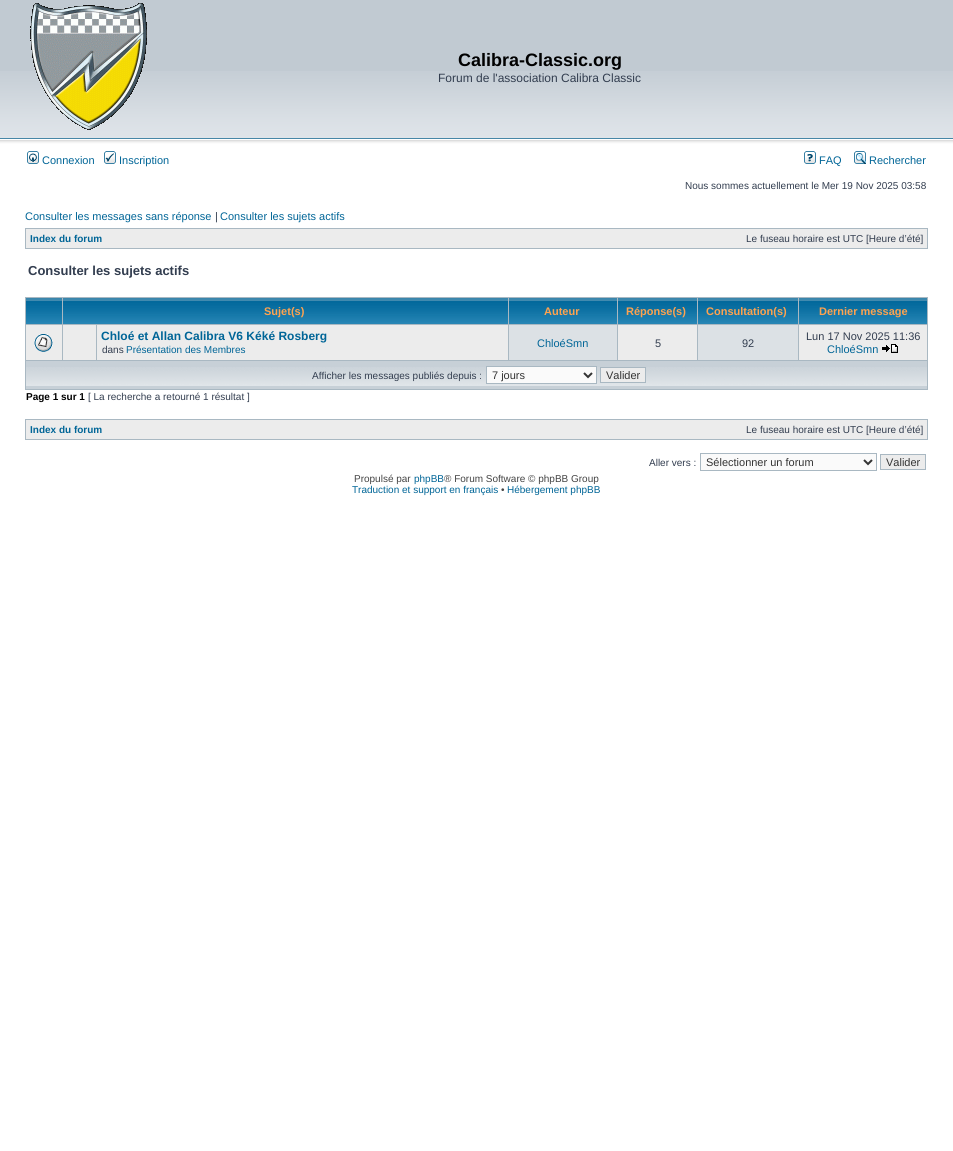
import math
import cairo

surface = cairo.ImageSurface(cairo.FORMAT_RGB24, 953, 1151)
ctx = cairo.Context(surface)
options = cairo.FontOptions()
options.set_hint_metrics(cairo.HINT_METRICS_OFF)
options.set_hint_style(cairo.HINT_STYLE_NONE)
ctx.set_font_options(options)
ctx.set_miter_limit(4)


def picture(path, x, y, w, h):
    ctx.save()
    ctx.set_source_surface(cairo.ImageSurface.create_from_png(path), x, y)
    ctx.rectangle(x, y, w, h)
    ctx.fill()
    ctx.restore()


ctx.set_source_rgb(1, 1, 1)
ctx.paint()
ctx.set_source_rgb(0.757, 0.792, 0.824)
ctx.rectangle(0, 0, 953, 71)
ctx.fill()
picture("img1.png", 0, 71, 953, 78)
picture("img2.png", 30, 3, 117, 127)
ctx.select_font_face("Liberation Sans", cairo.FONT_SLANT_NORMAL, cairo.FONT_WEIGHT_BOLD)
ctx.set_font_size(18)
ctx.set_source_rgb(0, 0, 0)
ctx.move_to(458, 66)
ctx.show_text("Calibra-Classic.org")
ctx.select_font_face("Liberation Sans")
ctx.set_font_size(12)
ctx.set_source_rgb(0.196, 0.239, 0.31)
ctx.move_to(438, 82)
ctx.show_text("Forum de l'association Calibra Classic")
picture("img3.png", 27, 151, 12, 13)
ctx.set_font_size(11)
ctx.set_source_rgb(0, 0.396, 0.592)
ctx.move_to(42, 164)
ctx.show_text("Connexion")
picture("img4.png", 104, 151, 12, 13)
ctx.move_to(119, 164)
ctx.show_text("Inscription")
picture("img5.png", 804, 151, 12, 13)
ctx.move_to(819, 164)
ctx.show_text("FAQ")
picture("img6.png", 854, 151, 12, 13)
ctx.move_to(869, 164)
ctx.show_text("Rechercher")
ctx.set_font_size(10)
ctx.set_source_rgb(0.196, 0.239, 0.31)
ctx.move_to(685, 189)
ctx.show_text("Nous sommes actuellement le Mer 19 Nov 2025 03:58")
ctx.set_font_size(11)
ctx.set_source_rgb(0, 0.396, 0.592)
ctx.move_to(25, 220)
ctx.show_text("Consulter les messages sans réponse")
ctx.set_source_rgb(0.196, 0.239, 0.31)
ctx.move_to(215, 220)
ctx.show_text("|")
ctx.set_source_rgb(0, 0.396, 0.592)
ctx.move_to(220, 220)
ctx.show_text("Consulter les sujets actifs")
ctx.set_source_rgb(0.663, 0.722, 0.761)
ctx.rectangle(25, 228, 903, 21)
ctx.fill()
ctx.set_source_rgb(0.925, 0.925, 0.925)
ctx.rectangle(26, 229, 901, 19)
ctx.fill()
ctx.select_font_face("Liberation Sans", cairo.FONT_SLANT_NORMAL, cairo.FONT_WEIGHT_BOLD)
ctx.set_font_size(10)
ctx.set_source_rgb(0, 0.396, 0.592)
ctx.move_to(30, 242)
ctx.show_text("Index du forum")
ctx.select_font_face("Liberation Sans")
ctx.set_source_rgb(0.196, 0.239, 0.31)
ctx.move_to(746, 242)
ctx.show_text("Le fuseau horaire est UTC [Heure d’été]")
ctx.select_font_face("Liberation Sans", cairo.FONT_SLANT_NORMAL, cairo.FONT_WEIGHT_BOLD)
ctx.set_font_size(13)
ctx.move_to(28, 275)
ctx.show_text("Consulter les sujets actifs")
ctx.set_source_rgb(0.663, 0.722, 0.761)
ctx.rectangle(25, 297, 903, 93)
ctx.fill()
picture("img7.png", 26, 298, 36, 26)
picture("img8.png", 63, 298, 445, 26)
ctx.set_font_size(11)
ctx.set_source_rgb(1, 0.639, 0.31)
ctx.move_to(264, 315)
ctx.show_text("Sujet(s)")
picture("img9.png", 509, 298, 108, 26)
ctx.move_to(544, 315)
ctx.show_text("Auteur")
picture("img10.png", 618, 298, 79, 26)
ctx.move_to(626, 315)
ctx.show_text("Réponse(s)")
picture("img11.png", 698, 298, 100, 26)
ctx.move_to(706, 315)
ctx.show_text("Consultation(s)")
picture("img12.png", 799, 298, 128, 26)
ctx.move_to(819, 315)
ctx.show_text("Dernier message")
ctx.set_source_rgb(0.925, 0.925, 0.925)
ctx.rectangle(26, 325, 36, 35)
ctx.fill()
picture("img13.png", 34, 334, 19, 18)
ctx.rectangle(63, 325, 33, 35)
ctx.fill()
ctx.rectangle(97, 325, 411, 35)
ctx.fill()
ctx.set_font_size(12)
ctx.set_source_rgb(0, 0.396, 0.592)
ctx.move_to(101, 340)
ctx.show_text("Chloé et Allan Calibra V6 Kéké Rosberg")
ctx.select_font_face("Liberation Sans")
ctx.set_font_size(10)
ctx.set_source_rgb(0.196, 0.239, 0.31)
ctx.move_to(102, 353)
ctx.show_text("dans")
ctx.set_source_rgb(0, 0.396, 0.592)
ctx.move_to(126, 353)
ctx.show_text("Présentation des Membres")
ctx.set_source_rgb(0.863, 0.882, 0.898)
ctx.rectangle(509, 325, 108, 35)
ctx.fill()
ctx.set_font_size(11)
ctx.set_source_rgb(0, 0.396, 0.592)
ctx.move_to(537, 347)
ctx.show_text("ChloéSmn")
ctx.set_source_rgb(0.925, 0.925, 0.925)
ctx.rectangle(618, 325, 79, 35)
ctx.fill()
ctx.set_source_rgb(0.196, 0.239, 0.31)
ctx.move_to(655, 347)
ctx.show_text("5")
ctx.set_source_rgb(0.863, 0.882, 0.898)
ctx.rectangle(698, 325, 100, 35)
ctx.fill()
ctx.set_source_rgb(0.196, 0.239, 0.31)
ctx.move_to(742, 347)
ctx.show_text("92")
ctx.set_source_rgb(0.925, 0.925, 0.925)
ctx.rectangle(799, 325, 128, 35)
ctx.fill()
ctx.set_source_rgb(0.196, 0.239, 0.31)
ctx.move_to(806, 340)
ctx.show_text("Lun 17 Nov 2025 11:36")
ctx.set_source_rgb(0, 0.396, 0.592)
ctx.move_to(827, 353)
ctx.show_text("ChloéSmn")
picture("img14.png", 882, 344, 16, 9)
ctx.set_source_rgb(0.78, 0.816, 0.843)
ctx.rectangle(26, 361, 901, 28)
ctx.fill()
picture("img15.png", 26, 367, 901, 19)
ctx.set_font_size(10)
ctx.set_source_rgb(0.196, 0.239, 0.31)
ctx.move_to(312, 379)
ctx.show_text("Afficher les messages publiés depuis :")
ctx.set_source_rgb(0.98, 0.98, 0.98)
ctx.rectangle(486.5, 366.5, 110, 17)
ctx.fill_preserve()
ctx.set_source_rgb(0.663, 0.722, 0.761)
ctx.set_line_width(1)
ctx.stroke()
ctx.new_path()
ctx.move_to(584, 373)
ctx.line_to(588, 377)
ctx.line_to(592, 373)
ctx.set_source_rgb(0.2, 0.2, 0.2)
ctx.set_line_width(2)
ctx.stroke()
ctx.set_font_size(11)
ctx.move_to(492, 379)
ctx.show_text("7 jours")
ctx.set_source_rgb(0.925, 0.925, 0.925)
ctx.rectangle(600.5, 367.5, 45, 15)
ctx.fill_preserve()
ctx.set_source_rgb(0.663, 0.722, 0.761)
ctx.set_line_width(1)
ctx.stroke()
ctx.set_source_rgb(0.2, 0.2, 0.2)
ctx.move_to(606, 379)
ctx.show_text("Valider")
ctx.select_font_face("Liberation Sans", cairo.FONT_SLANT_NORMAL, cairo.FONT_WEIGHT_BOLD)
ctx.set_font_size(10)
ctx.set_source_rgb(0, 0, 0)
ctx.move_to(26, 400)
ctx.show_text("Page 1 sur 1")
ctx.select_font_face("Liberation Sans")
ctx.set_source_rgb(0.196, 0.239, 0.31)
ctx.move_to(88, 400)
ctx.show_text("[ La recherche a retourné 1 résultat ]")
ctx.set_source_rgb(0.663, 0.722, 0.761)
ctx.rectangle(25, 419, 903, 21)
ctx.fill()
ctx.set_source_rgb(0.925, 0.925, 0.925)
ctx.rectangle(26, 420, 901, 19)
ctx.fill()
ctx.select_font_face("Liberation Sans", cairo.FONT_SLANT_NORMAL, cairo.FONT_WEIGHT_BOLD)
ctx.set_source_rgb(0, 0.396, 0.592)
ctx.move_to(30, 433)
ctx.show_text("Index du forum")
ctx.select_font_face("Liberation Sans")
ctx.set_source_rgb(0.196, 0.239, 0.31)
ctx.move_to(746, 433)
ctx.show_text("Le fuseau horaire est UTC [Heure d’été]")
ctx.move_to(649, 466)
ctx.show_text("Aller vers :")
ctx.set_source_rgb(0.98, 0.98, 0.98)
ctx.rectangle(700.5, 453.5, 176, 17)
ctx.fill_preserve()
ctx.set_source_rgb(0.663, 0.722, 0.761)
ctx.stroke()
ctx.new_path()
ctx.move_to(864, 460)
ctx.line_to(868, 464)
ctx.line_to(872, 460)
ctx.set_source_rgb(0.2, 0.2, 0.2)
ctx.set_line_width(2)
ctx.stroke()
ctx.set_font_size(11)
ctx.move_to(706, 466)
ctx.show_text("Sélectionner un forum")
ctx.set_source_rgb(0.925, 0.925, 0.925)
ctx.rectangle(880.5, 454.5, 45, 15)
ctx.fill_preserve()
ctx.set_source_rgb(0.663, 0.722, 0.761)
ctx.set_line_width(1)
ctx.stroke()
ctx.set_source_rgb(0.2, 0.2, 0.2)
ctx.move_to(886, 466)
ctx.show_text("Valider")
ctx.set_font_size(10)
ctx.set_source_rgb(0.267, 0.267, 0.267)
ctx.move_to(354, 482)
ctx.show_text("Propulsé par")
ctx.set_source_rgb(0, 0.396, 0.592)
ctx.move_to(414, 482)
ctx.show_text("phpBB")
ctx.set_source_rgb(0.267, 0.267, 0.267)
ctx.move_to(444, 482)
ctx.show_text("® Forum Software © phpBB Group")
ctx.set_source_rgb(0, 0.396, 0.592)
ctx.move_to(352, 493)
ctx.show_text("Traduction et support en français")
ctx.set_source_rgb(0.267, 0.267, 0.267)
ctx.move_to(501, 493)
ctx.show_text("•")
ctx.set_source_rgb(0, 0.396, 0.592)
ctx.move_to(507, 493)
ctx.show_text("Hébergement phpBB")
surface.write_to_png("page.png")
